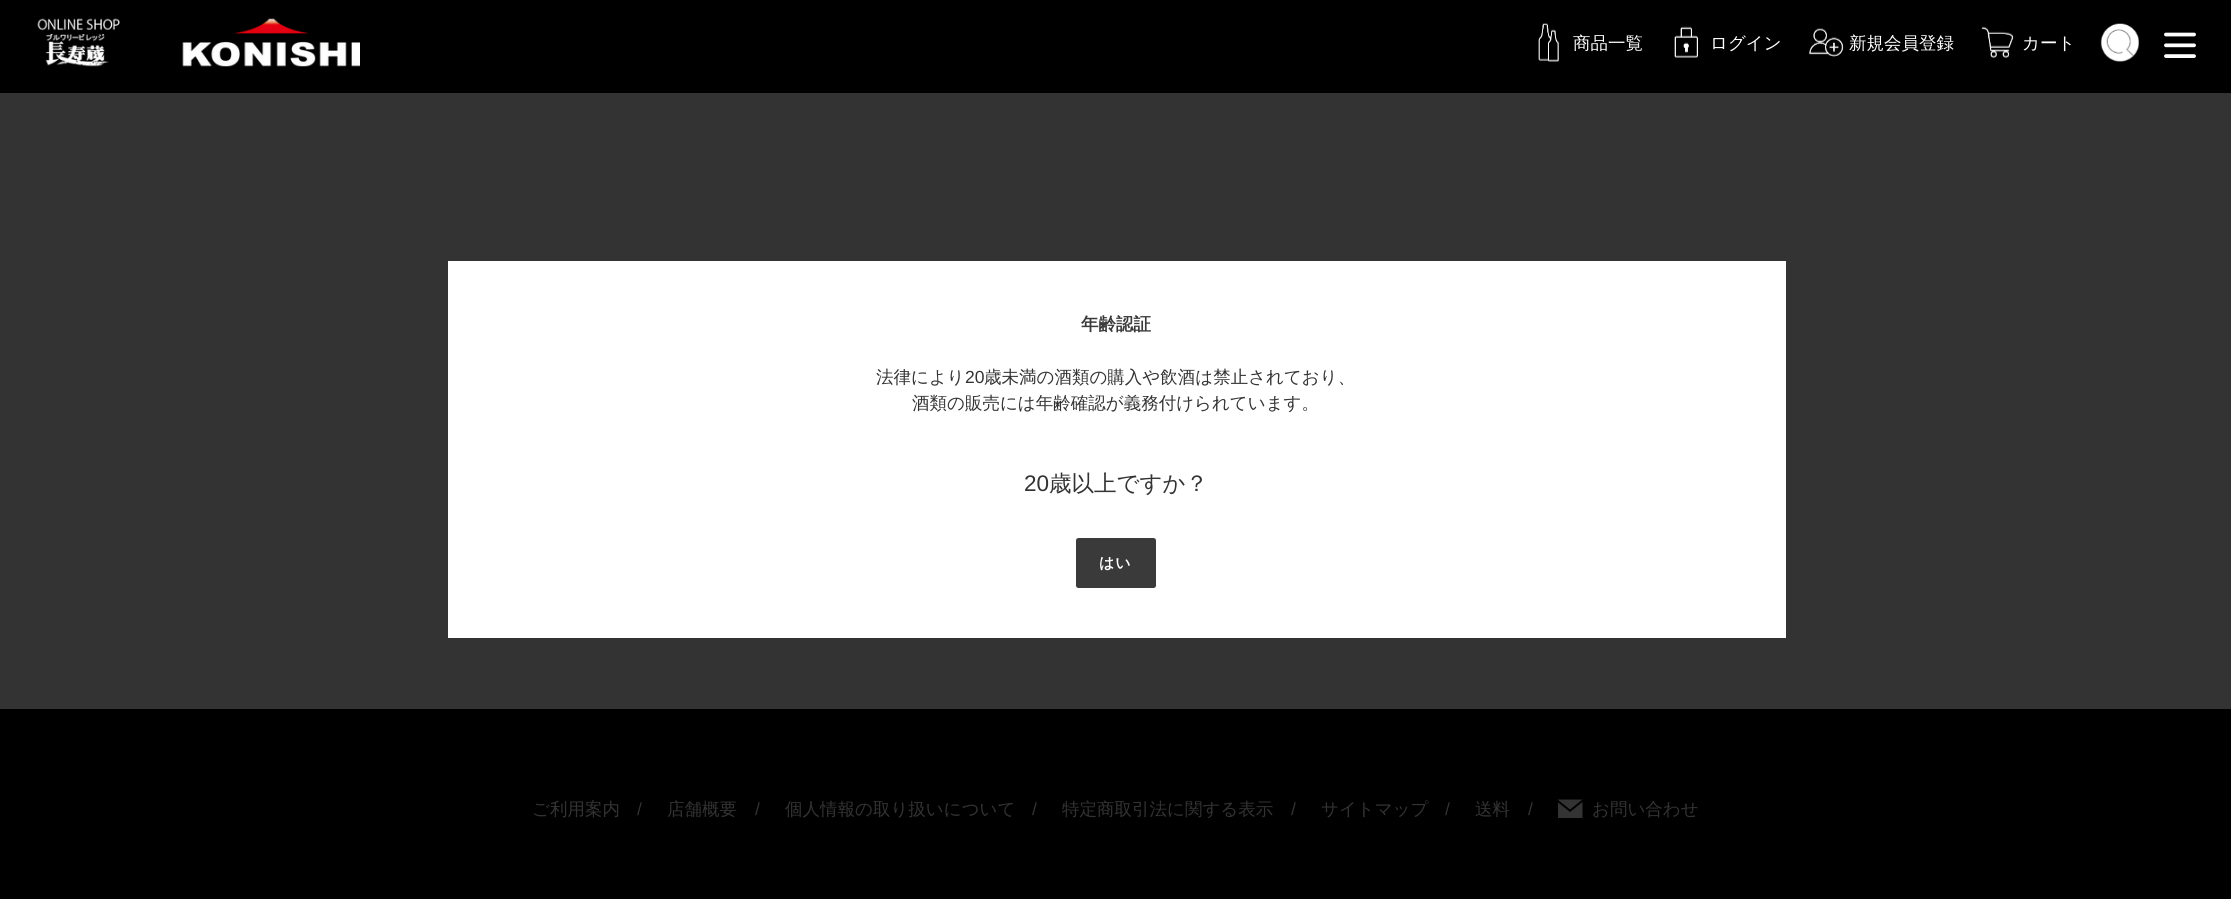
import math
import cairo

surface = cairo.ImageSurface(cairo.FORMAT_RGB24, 2231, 899)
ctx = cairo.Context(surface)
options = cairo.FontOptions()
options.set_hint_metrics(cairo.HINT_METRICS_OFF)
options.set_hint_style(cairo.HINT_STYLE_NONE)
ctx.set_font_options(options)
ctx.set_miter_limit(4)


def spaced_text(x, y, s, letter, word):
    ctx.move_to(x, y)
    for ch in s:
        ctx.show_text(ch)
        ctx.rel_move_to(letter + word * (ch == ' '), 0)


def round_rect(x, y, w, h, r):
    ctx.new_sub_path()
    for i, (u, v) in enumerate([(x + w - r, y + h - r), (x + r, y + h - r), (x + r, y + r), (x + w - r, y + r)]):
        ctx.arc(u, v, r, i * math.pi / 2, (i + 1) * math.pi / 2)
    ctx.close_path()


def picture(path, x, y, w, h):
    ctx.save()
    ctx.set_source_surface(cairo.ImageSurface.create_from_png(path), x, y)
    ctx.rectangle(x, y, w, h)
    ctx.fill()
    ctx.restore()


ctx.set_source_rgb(0.2, 0.2, 0.2)
ctx.paint()
ctx.set_source_rgb(0, 0, 0)
ctx.rectangle(0, 0, 2231, 93)
ctx.fill()
picture("img1.png", 37, 18, 323, 49)
picture("img2.png", 1538, 23, 21, 39)
ctx.select_font_face("WenQuanYi Zen Hei Medium")
ctx.set_font_size(17.5)
ctx.set_source_rgb(1, 1, 1)
ctx.move_to(1573, 49)
ctx.show_text("商品一覧")
picture("img3.png", 1674, 26, 24, 32)
ctx.move_to(1710, 49)
ctx.show_text("ログイン")
picture("img4.png", 1809, 28, 35, 29)
ctx.move_to(1849, 49)
ctx.show_text("新規会員登録")
picture("img5.png", 1981, 26, 33, 32)
ctx.move_to(2022, 49)
ctx.show_text("カート")
picture("img6.png", 2100, 23, 39, 39)
picture("img7.png", 2164, 32, 32, 26)
ctx.rectangle(448, 261, 1338, 377)
ctx.fill()
ctx.select_font_face("WenQuanYi Zen Hei", cairo.FONT_SLANT_NORMAL, cairo.FONT_WEIGHT_BOLD)
ctx.set_source_rgb(0.227, 0.227, 0.227)
ctx.move_to(1081, 330)
ctx.show_text("年齢認証")
ctx.select_font_face("WenQuanYi Zen Hei Medium")
ctx.set_source_rgb(0.2, 0.2, 0.2)
ctx.move_to(876, 383)
ctx.show_text("法律により")
ctx.select_font_face("Liberation Sans")
ctx.move_to(965, 383)
ctx.show_text("20")
ctx.select_font_face("WenQuanYi Zen Hei Medium")
ctx.move_to(984, 383)
ctx.show_text("歳未満の酒類の購入や飲酒は禁止されており、")
ctx.move_to(912, 409)
ctx.show_text("酒類の販売には年齢確認が義務付けられています。")
ctx.select_font_face("Liberation Sans")
ctx.set_font_size(22.5)
ctx.move_to(1024, 491)
ctx.show_text("20")
ctx.select_font_face("WenQuanYi Zen Hei Medium")
ctx.move_to(1049, 491)
ctx.show_text("歳以上ですか？")
ctx.set_source_rgb(0.227, 0.227, 0.227)
round_rect(1076, 538, 80, 50, 2.5)
ctx.fill()
ctx.select_font_face("WenQuanYi Zen Hei", cairo.FONT_SLANT_NORMAL, cairo.FONT_WEIGHT_BOLD)
ctx.set_font_size(15)
ctx.set_source_rgb(1, 1, 1)
spaced_text(1099, 568, "はい", 1, 0)
ctx.set_source_rgb(0, 0, 0)
ctx.rectangle(0, 709, 2231, 190)
ctx.fill()
ctx.select_font_face("WenQuanYi Zen Hei Medium")
ctx.set_font_size(17.5)
ctx.set_source_rgb(0.2, 0.2, 0.2)
ctx.move_to(532, 815)
ctx.show_text("ご利用案内")
ctx.select_font_face("Liberation Sans")
ctx.move_to(637, 815)
ctx.show_text("/")
ctx.select_font_face("WenQuanYi Zen Hei Medium")
ctx.move_to(667, 815)
ctx.show_text("店舗概要")
ctx.select_font_face("Liberation Sans")
ctx.move_to(755, 815)
ctx.show_text("/")
ctx.select_font_face("WenQuanYi Zen Hei Medium")
ctx.move_to(785, 815)
ctx.show_text("個人情報の取り扱いについて")
ctx.select_font_face("Liberation Sans")
ctx.move_to(1032, 815)
ctx.show_text("/")
ctx.select_font_face("WenQuanYi Zen Hei Medium")
ctx.move_to(1062, 815)
ctx.show_text("特定商取引法に関する表示")
ctx.select_font_face("Liberation Sans")
ctx.move_to(1291, 815)
ctx.show_text("/")
ctx.select_font_face("WenQuanYi Zen Hei Medium")
ctx.move_to(1321, 815)
ctx.show_text("サイトマップ")
ctx.select_font_face("Liberation Sans")
ctx.move_to(1445, 815)
ctx.show_text("/")
ctx.select_font_face("WenQuanYi Zen Hei Medium")
ctx.move_to(1475, 815)
ctx.show_text("送料")
ctx.select_font_face("Liberation Sans")
ctx.move_to(1528, 815)
ctx.show_text("/")
ctx.save()
ctx.rectangle(1558, 796, 25, 25)
ctx.clip()
ctx.new_path()
ctx.move_to(1570, 809.5)
ctx.line_to(1557.5, 799.5)
ctx.line_to(1582.5, 799.5)
ctx.close_path()
ctx.move_to(1570, 812)
ctx.line_to(1557.5, 802)
ctx.line_to(1557.5, 818)
ctx.line_to(1582.5, 818)
ctx.line_to(1582.5, 802)
ctx.close_path()
ctx.fill()
ctx.restore()
ctx.select_font_face("WenQuanYi Zen Hei Medium")
ctx.move_to(1592, 815)
ctx.show_text("お問い合わせ")
surface.write_to_png("page.png")
